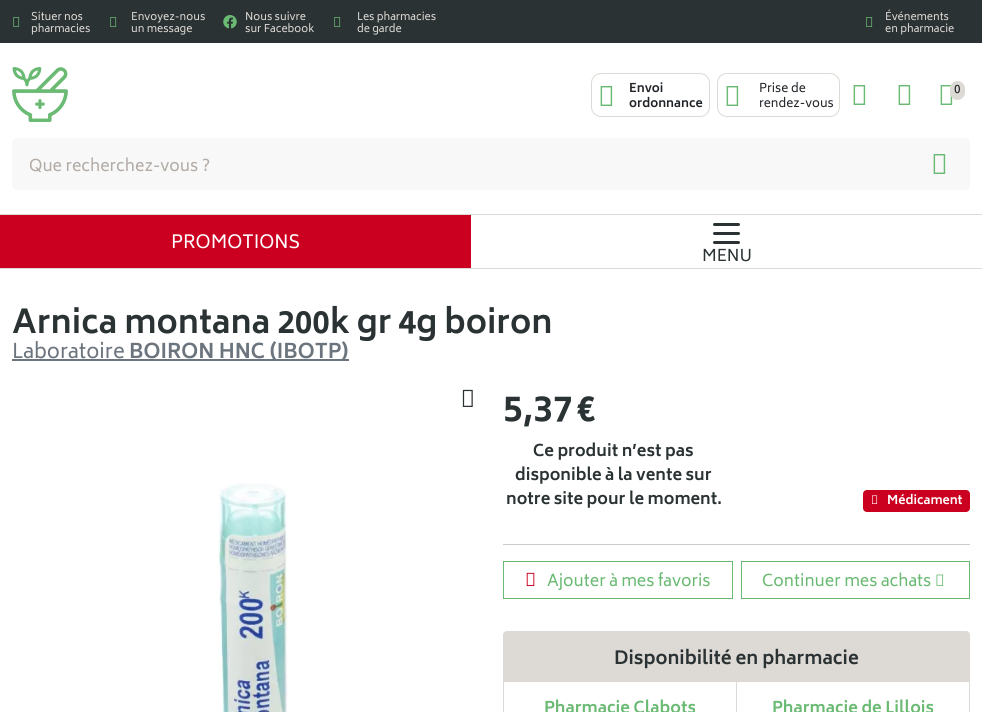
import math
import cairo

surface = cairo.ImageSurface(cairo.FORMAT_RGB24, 982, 712)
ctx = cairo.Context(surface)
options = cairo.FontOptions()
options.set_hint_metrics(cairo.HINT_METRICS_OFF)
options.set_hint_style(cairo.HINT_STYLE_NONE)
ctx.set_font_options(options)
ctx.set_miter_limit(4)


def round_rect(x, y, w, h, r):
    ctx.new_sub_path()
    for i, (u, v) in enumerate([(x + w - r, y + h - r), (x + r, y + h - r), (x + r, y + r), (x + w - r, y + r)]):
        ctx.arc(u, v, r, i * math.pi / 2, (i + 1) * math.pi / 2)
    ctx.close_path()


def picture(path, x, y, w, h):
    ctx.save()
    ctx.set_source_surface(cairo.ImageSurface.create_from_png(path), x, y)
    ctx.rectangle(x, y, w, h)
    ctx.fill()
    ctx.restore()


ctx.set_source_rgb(1, 1, 1)
ctx.paint()
ctx.set_source_rgb(0.165, 0.196, 0.204)
ctx.rectangle(0, 0, 982, 43)
ctx.fill()
picture("img1.png", 13, 17, 7, 10)
ctx.select_font_face("Biryani")
ctx.set_font_size(10.5)
ctx.set_source_rgb(0.867, 0.851, 0.831)
ctx.move_to(31, 20)
ctx.show_text("Situer nos")
ctx.move_to(31, 32)
ctx.show_text("pharmacies")
picture("img1.png", 110, 17, 7, 10)
ctx.move_to(131, 20)
ctx.show_text("Envoyez-nous")
ctx.move_to(131, 32)
ctx.show_text("un message")
picture("img2.png", 223, 15, 14, 14)
ctx.move_to(245, 20)
ctx.show_text("Nous suivre")
ctx.move_to(245, 32)
ctx.show_text("sur Facebook")
picture("img1.png", 334, 17, 7, 10)
ctx.move_to(357, 20)
ctx.show_text("Les pharmacies")
ctx.move_to(357, 32)
ctx.show_text("de garde")
picture("img1.png", 866, 17, 7, 10)
ctx.move_to(885, 20)
ctx.show_text("Événements")
ctx.move_to(885, 32)
ctx.show_text("en pharmacie")
picture("img3.png", 12, 67, 56, 55)
round_rect(591.5, 73.5, 118, 43, 9.5)
ctx.set_line_width(1)
ctx.stroke()
picture("img4.png", 600, 86, 13, 20)
ctx.select_font_face("Biryani", cairo.FONT_SLANT_NORMAL, cairo.FONT_WEIGHT_BOLD)
ctx.set_font_size(12)
ctx.set_source_rgb(0.129, 0.145, 0.161)
ctx.move_to(629, 92)
ctx.show_text("Envoi")
ctx.move_to(629, 107)
ctx.show_text("ordonnance")
round_rect(717.5, 73.5, 122, 43, 9.5)
ctx.set_source_rgb(0.867, 0.851, 0.831)
ctx.stroke()
picture("img4.png", 726, 86, 13, 20)
ctx.select_font_face("Biryani")
ctx.set_source_rgb(0.129, 0.145, 0.161)
ctx.move_to(759, 92)
ctx.show_text("Prise de")
ctx.move_to(759, 107)
ctx.show_text("rendez-vous")
picture("img4.png", 853, 85, 13, 20)
picture("img4.png", 898, 85, 13, 20)
picture("img4.png", 940, 85, 13, 20)
ctx.set_source_rgb(0.867, 0.851, 0.831)
round_rect(950, 81, 15, 19, 7.5)
ctx.fill()
ctx.set_source_rgb(0.129, 0.145, 0.161)
ctx.move_to(954, 93)
ctx.show_text("0")
ctx.set_source_rgb(0.969, 0.969, 0.969)
ctx.new_path()
ctx.move_to(17, 138.5)
ctx.line_to(920.5, 138.5)
ctx.line_to(920.5, 189.5)
ctx.line_to(17, 189.5)
ctx.curve_to(14.5, 189.5, 12.5, 187.5, 12.5, 185)
ctx.line_to(12.5, 143)
ctx.curve_to(12.5, 140.5, 14.5, 138.5, 17, 138.5)
ctx.close_path()
ctx.fill_preserve()
ctx.stroke()
ctx.set_font_size(16)
ctx.set_source_rgb(0.698, 0.671, 0.651)
ctx.move_to(29, 171)
ctx.show_text("Que recherchez-vous ?")
ctx.set_source_rgb(0.969, 0.969, 0.969)
ctx.new_path()
ctx.move_to(920, 138)
ctx.line_to(965, 138)
ctx.curve_to(968, 138, 970, 140, 970, 143)
ctx.line_to(970, 185)
ctx.curve_to(970, 188, 968, 190, 965, 190)
ctx.line_to(920, 190)
ctx.close_path()
ctx.fill()
picture("img5.png", 933, 154, 13, 20)
ctx.set_source_rgb(0.867, 0.851, 0.831)
ctx.rectangle(0, 214, 982, 1)
ctx.fill()
ctx.rectangle(0, 268, 982, 1)
ctx.fill()
ctx.set_source_rgb(0.796, 0, 0.129)
ctx.rectangle(0, 215, 471, 53)
ctx.fill()
ctx.set_font_size(18)
ctx.set_source_rgb(1, 1, 1)
ctx.move_to(171, 248)
ctx.show_text("PROMOTIONS")
ctx.set_source_rgb(0.165, 0.196, 0.204)
round_rect(713, 223, 27, 3, 1.5)
ctx.fill()
round_rect(713, 232, 27, 3, 1.5)
ctx.fill()
round_rect(713, 241, 27, 3, 1.5)
ctx.fill()
ctx.set_font_size(16)
ctx.move_to(702, 261)
ctx.show_text("MENU")
ctx.select_font_face("Biryani", cairo.FONT_SLANT_NORMAL, cairo.FONT_WEIGHT_BOLD)
ctx.set_font_size(32)
ctx.move_to(12, 333)
ctx.show_text("Arnica montana 200k gr 4g boiron")
ctx.select_font_face("Biryani")
ctx.set_font_size(20)
ctx.set_source_rgb(0.424, 0.459, 0.49)
ctx.move_to(12, 358)
ctx.show_text("Laboratoire")
ctx.rectangle(12, 359, 337, 2)
ctx.fill()
ctx.select_font_face("Biryani", cairo.FONT_SLANT_NORMAL, cairo.FONT_WEIGHT_BOLD)
ctx.move_to(129, 358)
ctx.show_text("BOIRON HNC (IBOTP)")
picture("img6.png", 462, 389, 11, 18)
picture("img7.png", 218, 483, 70, 229)
ctx.set_font_size(36)
ctx.set_source_rgb(0.165, 0.196, 0.204)
ctx.move_to(503, 421)
ctx.show_text("5,37")
ctx.move_to(576, 421)
ctx.show_text("€")
ctx.set_font_size(16)
ctx.move_to(533, 456)
ctx.show_text("Ce produit n’est pas")
ctx.move_to(515, 480)
ctx.show_text("disponible à la vente sur")
ctx.move_to(506, 504)
ctx.show_text("notre site pour le moment.")
ctx.set_source_rgb(0.796, 0, 0.129)
round_rect(863, 490, 107, 22, 4)
ctx.fill()
picture("img8.png", 872, 495, 6, 9)
ctx.set_font_size(12)
ctx.set_source_rgb(1, 1, 1)
ctx.move_to(887, 504)
ctx.show_text("Médicament")
ctx.set_source_rgb(0.792, 0.8, 0.8)
ctx.rectangle(503, 544, 467, 1)
ctx.fill()
ctx.rectangle(503.5, 561.5, 229, 37)
ctx.set_source_rgb(0.416, 0.729, 0.451)
ctx.stroke()
picture("img9.png", 526, 572, 9, 14)
ctx.select_font_face("Biryani")
ctx.set_font_size(16)
ctx.move_to(547, 586)
ctx.show_text("Ajouter à mes favoris")
ctx.rectangle(741.5, 561.5, 228, 37)
ctx.stroke()
ctx.move_to(762, 586)
ctx.show_text("Continuer mes achats")
picture("img10.png", 936, 574, 8, 12)
ctx.set_source_rgb(0.867, 0.851, 0.831)
round_rect(503.5, 631.5, 466, 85, 3.5)
ctx.fill_preserve()
ctx.stroke()
ctx.select_font_face("Biryani", cairo.FONT_SLANT_NORMAL, cairo.FONT_WEIGHT_BOLD)
ctx.set_font_size(18)
ctx.set_source_rgb(0.165, 0.196, 0.204)
ctx.move_to(614, 664)
ctx.show_text("Disponibilité en pharmacie")
ctx.set_source_rgb(1, 1, 1)
ctx.rectangle(504, 682, 232, 30)
ctx.fill()
ctx.set_font_size(16)
ctx.set_source_rgb(0.416, 0.729, 0.451)
ctx.move_to(544, 713)
ctx.show_text("Pharmacie Clabots")
ctx.set_source_rgb(1, 1, 1)
ctx.rectangle(737, 682, 232, 30)
ctx.fill()
ctx.set_source_rgb(0.416, 0.729, 0.451)
ctx.move_to(772, 713)
ctx.show_text("Pharmacie de Lillois")
surface.write_to_png("page.png")
